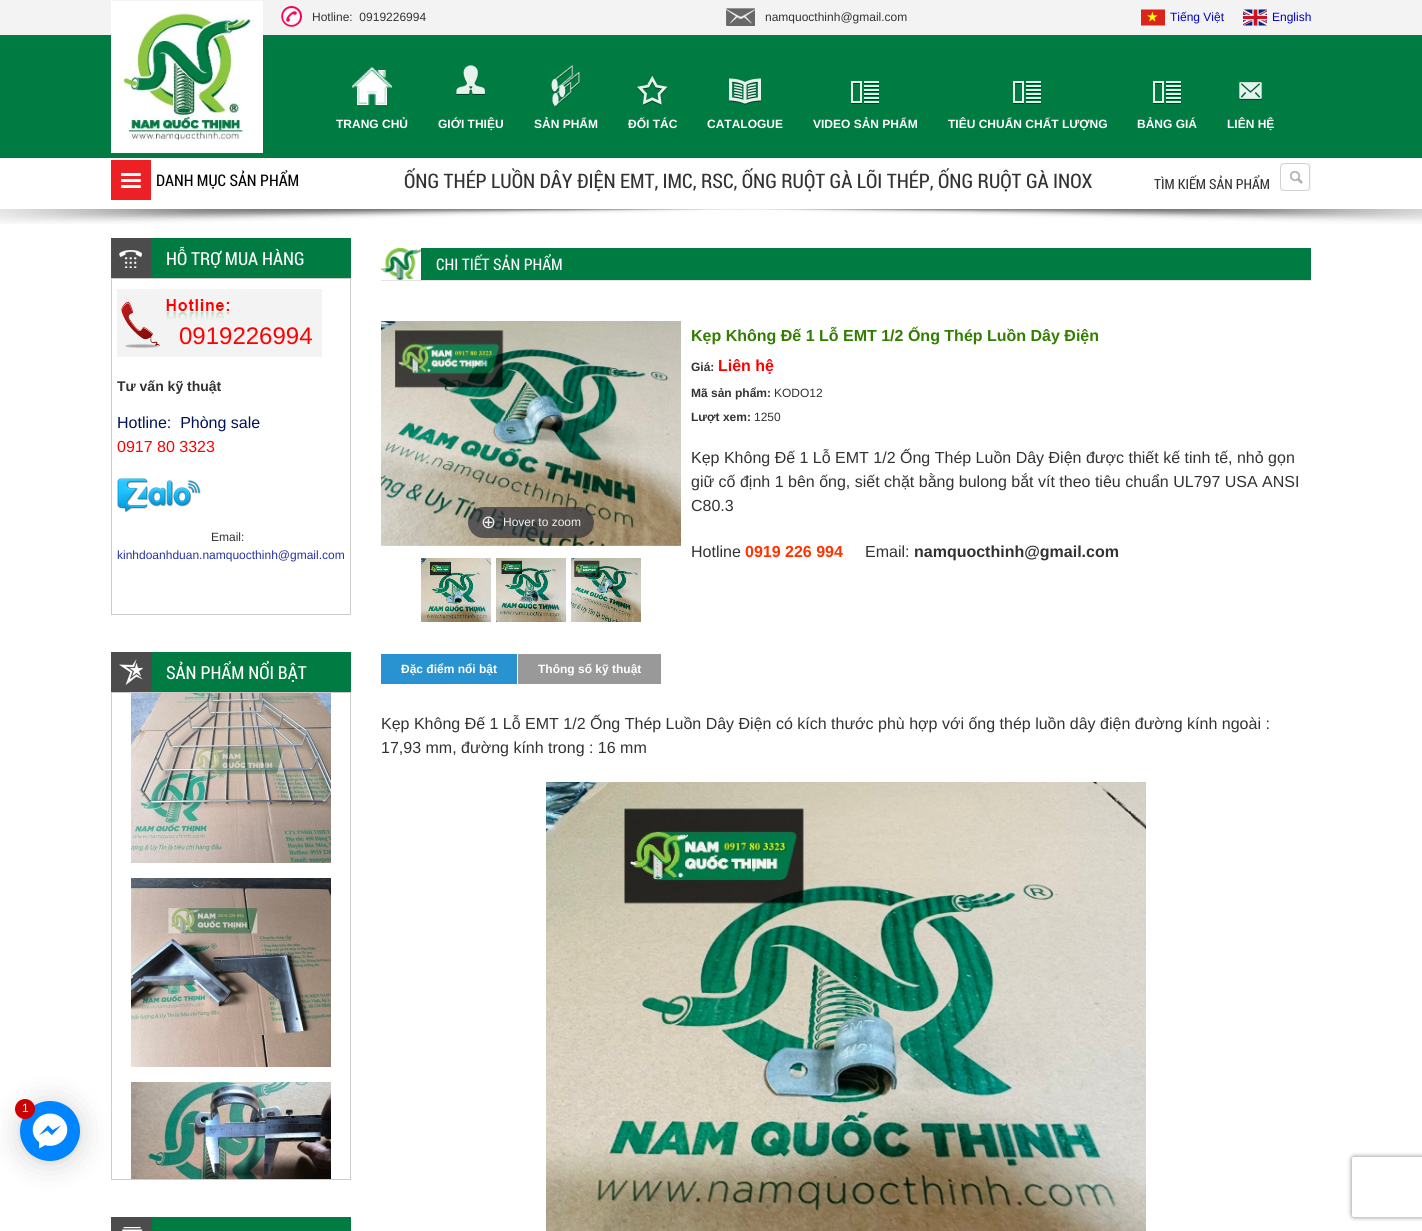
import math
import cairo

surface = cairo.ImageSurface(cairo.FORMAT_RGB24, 1422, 1231)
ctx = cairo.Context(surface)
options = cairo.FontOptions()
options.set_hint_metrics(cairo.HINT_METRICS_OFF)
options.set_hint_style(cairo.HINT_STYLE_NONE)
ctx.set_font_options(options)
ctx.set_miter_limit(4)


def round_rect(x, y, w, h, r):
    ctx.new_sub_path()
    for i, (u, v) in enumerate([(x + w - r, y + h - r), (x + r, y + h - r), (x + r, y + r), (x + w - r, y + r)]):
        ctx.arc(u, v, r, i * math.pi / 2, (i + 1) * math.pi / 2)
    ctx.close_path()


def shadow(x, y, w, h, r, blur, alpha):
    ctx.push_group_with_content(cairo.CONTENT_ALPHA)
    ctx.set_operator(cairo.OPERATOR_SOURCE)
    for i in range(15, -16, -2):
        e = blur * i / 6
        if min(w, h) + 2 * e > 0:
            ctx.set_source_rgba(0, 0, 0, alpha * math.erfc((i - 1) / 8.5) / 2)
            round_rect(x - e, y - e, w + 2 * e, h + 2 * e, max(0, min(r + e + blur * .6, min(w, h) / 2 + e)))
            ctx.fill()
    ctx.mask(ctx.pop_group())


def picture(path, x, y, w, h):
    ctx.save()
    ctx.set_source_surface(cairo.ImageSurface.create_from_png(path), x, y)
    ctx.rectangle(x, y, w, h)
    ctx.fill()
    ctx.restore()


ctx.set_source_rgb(1, 1, 1)
ctx.paint()
ctx.set_source_rgb(0.953, 0.953, 0.953)
ctx.rectangle(0, 0, 1422, 35)
ctx.fill()
picture("img1.png", 281, 6, 21, 21)
ctx.select_font_face("Liberation Sans")
ctx.set_font_size(12)
ctx.set_source_rgb(0.2, 0.196, 0.196)
ctx.move_to(312, 21)
ctx.show_text("Hotline:  0919226994")
picture("img2.png", 726, 8, 29, 18)
ctx.move_to(765, 21)
ctx.show_text("namquocthinh@gmail.com")
picture("img3.png", 1141, 9, 24, 17)
ctx.set_source_rgb(0, 0, 0.8)
ctx.move_to(1170, 21)
ctx.show_text("Tiếng Việt")
picture("img4.png", 1243, 9, 24, 17)
ctx.move_to(1272, 21)
ctx.show_text("English")
ctx.set_source_rgb(0, 0.486, 0.259)
ctx.rectangle(0, 35, 1422, 123)
ctx.fill()
picture("img5.png", 111, 1, 152, 152)
picture("img6.png", 352, 67, 40, 38)
ctx.select_font_face("Liberation Sans", cairo.FONT_SLANT_NORMAL, cairo.FONT_WEIGHT_BOLD)
ctx.set_source_rgb(1, 1, 1)
ctx.move_to(336, 128)
ctx.show_text("TRANG CHỦ")
picture("img7.png", 456, 65, 29, 30)
ctx.move_to(438, 128)
ctx.show_text("GIỚI THIỆU")
picture("img8.png", 551, 65, 29, 43)
ctx.move_to(534, 128)
ctx.show_text("SẢN PHẨM")
picture("img9.png", 637, 75, 31, 31)
ctx.move_to(628, 128)
ctx.show_text("ĐỐI TÁC")
picture("img10.png", 729, 78, 32, 27)
ctx.move_to(707, 128)
ctx.show_text("CATALOGUE")
picture("img11.png", 851, 81, 28, 23)
ctx.move_to(813, 128)
ctx.show_text("VIDEO SẢN PHẨM")
picture("img11.png", 1013, 81, 28, 23)
ctx.move_to(948, 128)
ctx.show_text("TIÊU CHUẨN CHẤT LƯỢNG")
picture("img11.png", 1153, 81, 28, 23)
ctx.move_to(1137, 128)
ctx.show_text("BẢNG GIÁ")
picture("img12.png", 1239, 82, 23, 18)
ctx.move_to(1227, 128)
ctx.show_text("LIÊN HỆ")
picture("img13.png", 111, 160, 40, 40)
ctx.select_font_face("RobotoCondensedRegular")
ctx.set_font_size(16)
ctx.set_source_rgb(0, 0, 0)
ctx.move_to(156, 186)
ctx.show_text("DANH MỤC SẢN PHẨM")
ctx.set_font_size(20)
ctx.set_source_rgb(0.2, 0.196, 0.196)
ctx.move_to(404, 188)
ctx.show_text("ỐNG THÉP LUỒN DÂY ĐIỆN EMT, IMC, RSC, ỐNG RUỘT GÀ LÕI THÉP, ỐNG RUỘT GÀ INOX")
ctx.set_font_size(14)
ctx.move_to(1154, 189)
ctx.show_text("TÌM KIẾM SẢN PHẨM")
picture("img14.png", 1280, 163, 31, 28)
picture("img15.png", 0, 209, 1422, 15)
ctx.set_source_rgb(0, 0.486, 0.259)
ctx.rectangle(152, 238, 199, 40)
ctx.fill()
picture("img16.png", 111, 238, 41, 40)
ctx.set_font_size(18)
ctx.set_source_rgb(1, 1, 1)
ctx.move_to(166, 265)
ctx.show_text("HỖ TRỢ MUA HÀNG")
ctx.rectangle(111.5, 278.5, 239, 336)
ctx.set_source_rgb(0.8, 0.8, 0.8)
ctx.set_line_width(1)
ctx.stroke()
picture("img17.png", 117, 289, 205, 68)
ctx.select_font_face("Liberation Sans")
ctx.set_font_size(24)
ctx.set_source_rgb(1, 0, 0)
ctx.move_to(179, 344)
ctx.show_text("0919226994")
ctx.select_font_face("Liberation Sans", cairo.FONT_SLANT_NORMAL, cairo.FONT_WEIGHT_BOLD)
ctx.set_font_size(14)
ctx.set_source_rgb(0.2, 0.196, 0.196)
ctx.move_to(117, 391)
ctx.show_text("Tư vấn kỹ thuật")
ctx.select_font_face("Liberation Sans")
ctx.set_font_size(16)
ctx.set_source_rgb(0, 0.071, 0.341)
ctx.move_to(117, 428)
ctx.show_text("Hotline:  Phòng sale")
ctx.set_source_rgb(1, 0, 0)
ctx.move_to(117, 452)
ctx.show_text("0917 80 3323")
picture("img18.png", 117, 478, 84, 35)
ctx.set_font_size(12)
ctx.set_source_rgb(0.2, 0.196, 0.196)
ctx.move_to(211, 541)
ctx.show_text("Email:")
ctx.set_source_rgb(0.153, 0.2, 0.651)
ctx.move_to(117, 559)
ctx.show_text("kinhdoanhduan.namquocthinh@gmail.com")
ctx.set_source_rgb(0, 0.486, 0.259)
ctx.rectangle(152, 652, 199, 40)
ctx.fill()
picture("img19.png", 111, 652, 41, 40)
ctx.select_font_face("RobotoCondensedRegular")
ctx.set_font_size(18)
ctx.set_source_rgb(1, 1, 1)
ctx.move_to(166, 679)
ctx.show_text("SẢN PHẨM NỔI BẬT")
ctx.set_source_rgb(0, 0, 0)
shadow(20, 1103, 60, 60, 30, 16, 0.16)
ctx.rectangle(111.5, 692.5, 239, 487)
ctx.set_source_rgb(0.8, 0.8, 0.8)
ctx.stroke()
picture("img20.png", 131, 693, 200, 170)
picture("img21.png", 131, 878, 200, 189)
picture("img22.png", 131, 1082, 200, 97)
ctx.set_source_rgb(0, 0.486, 0.259)
ctx.rectangle(152, 1217, 199, 14)
ctx.fill()
picture("img23.png", 111, 1217, 41, 14)
ctx.rectangle(421, 248, 890, 32)
ctx.fill()
picture("img24.png", 381, 248, 40, 32)
ctx.set_source_rgb(0.89, 0.89, 0.89)
ctx.rectangle(381, 280, 930, 1)
ctx.fill()
ctx.set_font_size(16)
ctx.set_source_rgb(1, 1, 1)
ctx.move_to(436, 270)
ctx.show_text("CHI TIẾT SẢN PHẨM")
picture("img25.png", 381, 321, 300, 225)
ctx.set_source_rgba(0.192, 0.2, 0.239, 0.7)
round_rect(468, 507, 126, 31, 15.5)
ctx.fill()
ctx.select_font_face("DejaVu Sans")
ctx.set_font_size(18)
ctx.set_source_rgb(0.933, 0.933, 0.933)
ctx.move_to(481, 528)
ctx.show_text("⊕")
ctx.select_font_face("Liberation Sans")
ctx.set_font_size(12)
ctx.move_to(503, 526)
ctx.show_text("Hover to zoom")
picture("img26.png", 421, 558, 70, 64)
picture("img27.png", 496, 558, 70, 64)
picture("img28.png", 571, 558, 70, 64)
ctx.select_font_face("Liberation Sans", cairo.FONT_SLANT_NORMAL, cairo.FONT_WEIGHT_BOLD)
ctx.set_font_size(16)
ctx.set_source_rgb(0.2, 0.494, 0.004)
ctx.move_to(691, 341)
ctx.show_text("Kẹp Không Đế 1 Lỗ EMT 1/2 Ống Thép Luồn Dây Điện")
ctx.set_font_size(12)
ctx.set_source_rgb(0.2, 0.196, 0.196)
ctx.move_to(691, 371)
ctx.show_text("Giá:")
ctx.set_font_size(16)
ctx.set_source_rgb(1, 0, 0)
ctx.move_to(718, 371)
ctx.show_text("Liên hệ")
ctx.set_font_size(12)
ctx.set_source_rgb(0.2, 0.196, 0.196)
ctx.move_to(691, 397)
ctx.show_text("Mã sản phẩm:")
ctx.select_font_face("Liberation Sans")
ctx.move_to(774, 397)
ctx.show_text("KODO12")
ctx.select_font_face("Liberation Sans", cairo.FONT_SLANT_NORMAL, cairo.FONT_WEIGHT_BOLD)
ctx.move_to(691, 421)
ctx.show_text("Lượt xem:")
ctx.select_font_face("Liberation Sans")
ctx.move_to(754, 421)
ctx.show_text("1250")
ctx.set_font_size(16)
ctx.move_to(691, 463)
ctx.show_text("Kẹp Không Đế 1 Lỗ EMT 1/2 Ống Thép Luồn Dây Điện được thiết kế tinh tế, nhỏ gọn")
ctx.move_to(691, 487)
ctx.show_text("giữ cố định 1 bên ống, siết chặt bằng bulong bắt vít theo tiêu chuẩn UL797 USA ANSI")
ctx.move_to(691, 511)
ctx.show_text("C80.3")
ctx.move_to(691, 557)
ctx.show_text("Hotline")
ctx.select_font_face("Liberation Sans", cairo.FONT_SLANT_NORMAL, cairo.FONT_WEIGHT_BOLD)
ctx.set_source_rgb(1, 0.2, 0)
ctx.move_to(745, 557)
ctx.show_text("0919 226 994")
ctx.select_font_face("Liberation Sans")
ctx.set_source_rgb(0.2, 0.196, 0.196)
ctx.move_to(865, 557)
ctx.show_text("Email:")
ctx.select_font_face("Liberation Sans", cairo.FONT_SLANT_NORMAL, cairo.FONT_WEIGHT_BOLD)
ctx.move_to(914, 557)
ctx.show_text("namquocthinh@gmail.com")
ctx.set_source_rgb(0.161, 0.576, 0.82)
ctx.rectangle(381, 654, 136, 30)
ctx.fill()
ctx.set_source_rgb(1, 0.98, 0.98)
ctx.rectangle(381, 684, 136, 1)
ctx.fill()
ctx.set_font_size(12)
ctx.set_source_rgb(1, 1, 1)
ctx.move_to(401, 673)
ctx.show_text("Đặc điểm nổi bật")
ctx.set_source_rgb(0.6, 0.6, 0.6)
ctx.rectangle(518, 654, 143, 30)
ctx.fill()
ctx.set_source_rgb(1, 1, 1)
ctx.move_to(538, 673)
ctx.show_text("Thông số kỹ thuật")
ctx.select_font_face("Liberation Sans")
ctx.set_font_size(16)
ctx.set_source_rgb(0.2, 0.196, 0.196)
ctx.move_to(381, 729)
ctx.show_text("Kẹp Không Đế 1 Lỗ EMT 1/2 Ống Thép Luồn Dây Điện có kích thước phù hợp với ống thép luồn dây điện đường kính ngoài :")
ctx.move_to(381, 753)
ctx.show_text("17,93 mm, đường kính trong : 16 mm")
picture("img29.png", 546, 782, 600, 449)
ctx.set_source_rgb(0, 0, 0)
shadow(20, 1102, 60, 60, 30, 3, 0.06)
ctx.set_source_rgb(0, 0.518, 1)
ctx.arc(50, 1131, 30, 0, 2 * math.pi)
ctx.fill()
picture("img30.png", 26, 1107, 48, 48)
ctx.set_source_rgb(0.8, 0, 0)
ctx.arc(25, 1109, 10, 0, 2 * math.pi)
ctx.fill()
ctx.set_font_size(12)
ctx.set_source_rgb(1, 1, 1)
ctx.move_to(22, 1112)
ctx.show_text("1")
ctx.save()
ctx.set_fill_rule(cairo.FILL_RULE_EVEN_ODD)
ctx.new_path()
ctx.move_to(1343, 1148)
ctx.line_to(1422, 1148)
ctx.line_to(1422, 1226)
ctx.line_to(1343, 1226)
ctx.close_path()
ctx.move_to(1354, 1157)
ctx.line_to(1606, 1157)
ctx.curve_to(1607, 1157, 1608, 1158, 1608, 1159)
ctx.line_to(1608, 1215)
ctx.curve_to(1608, 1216, 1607, 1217, 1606, 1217)
ctx.line_to(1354, 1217)
ctx.curve_to(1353, 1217, 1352, 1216, 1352, 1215)
ctx.line_to(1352, 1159)
ctx.curve_to(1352, 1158, 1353, 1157, 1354, 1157)
ctx.close_path()
ctx.clip()
ctx.set_source_rgb(0.502, 0.502, 0.502)
shadow(1352, 1157, 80, 60, 2, 2.5, 1)
ctx.restore()
surface.write_to_png("page.png")
